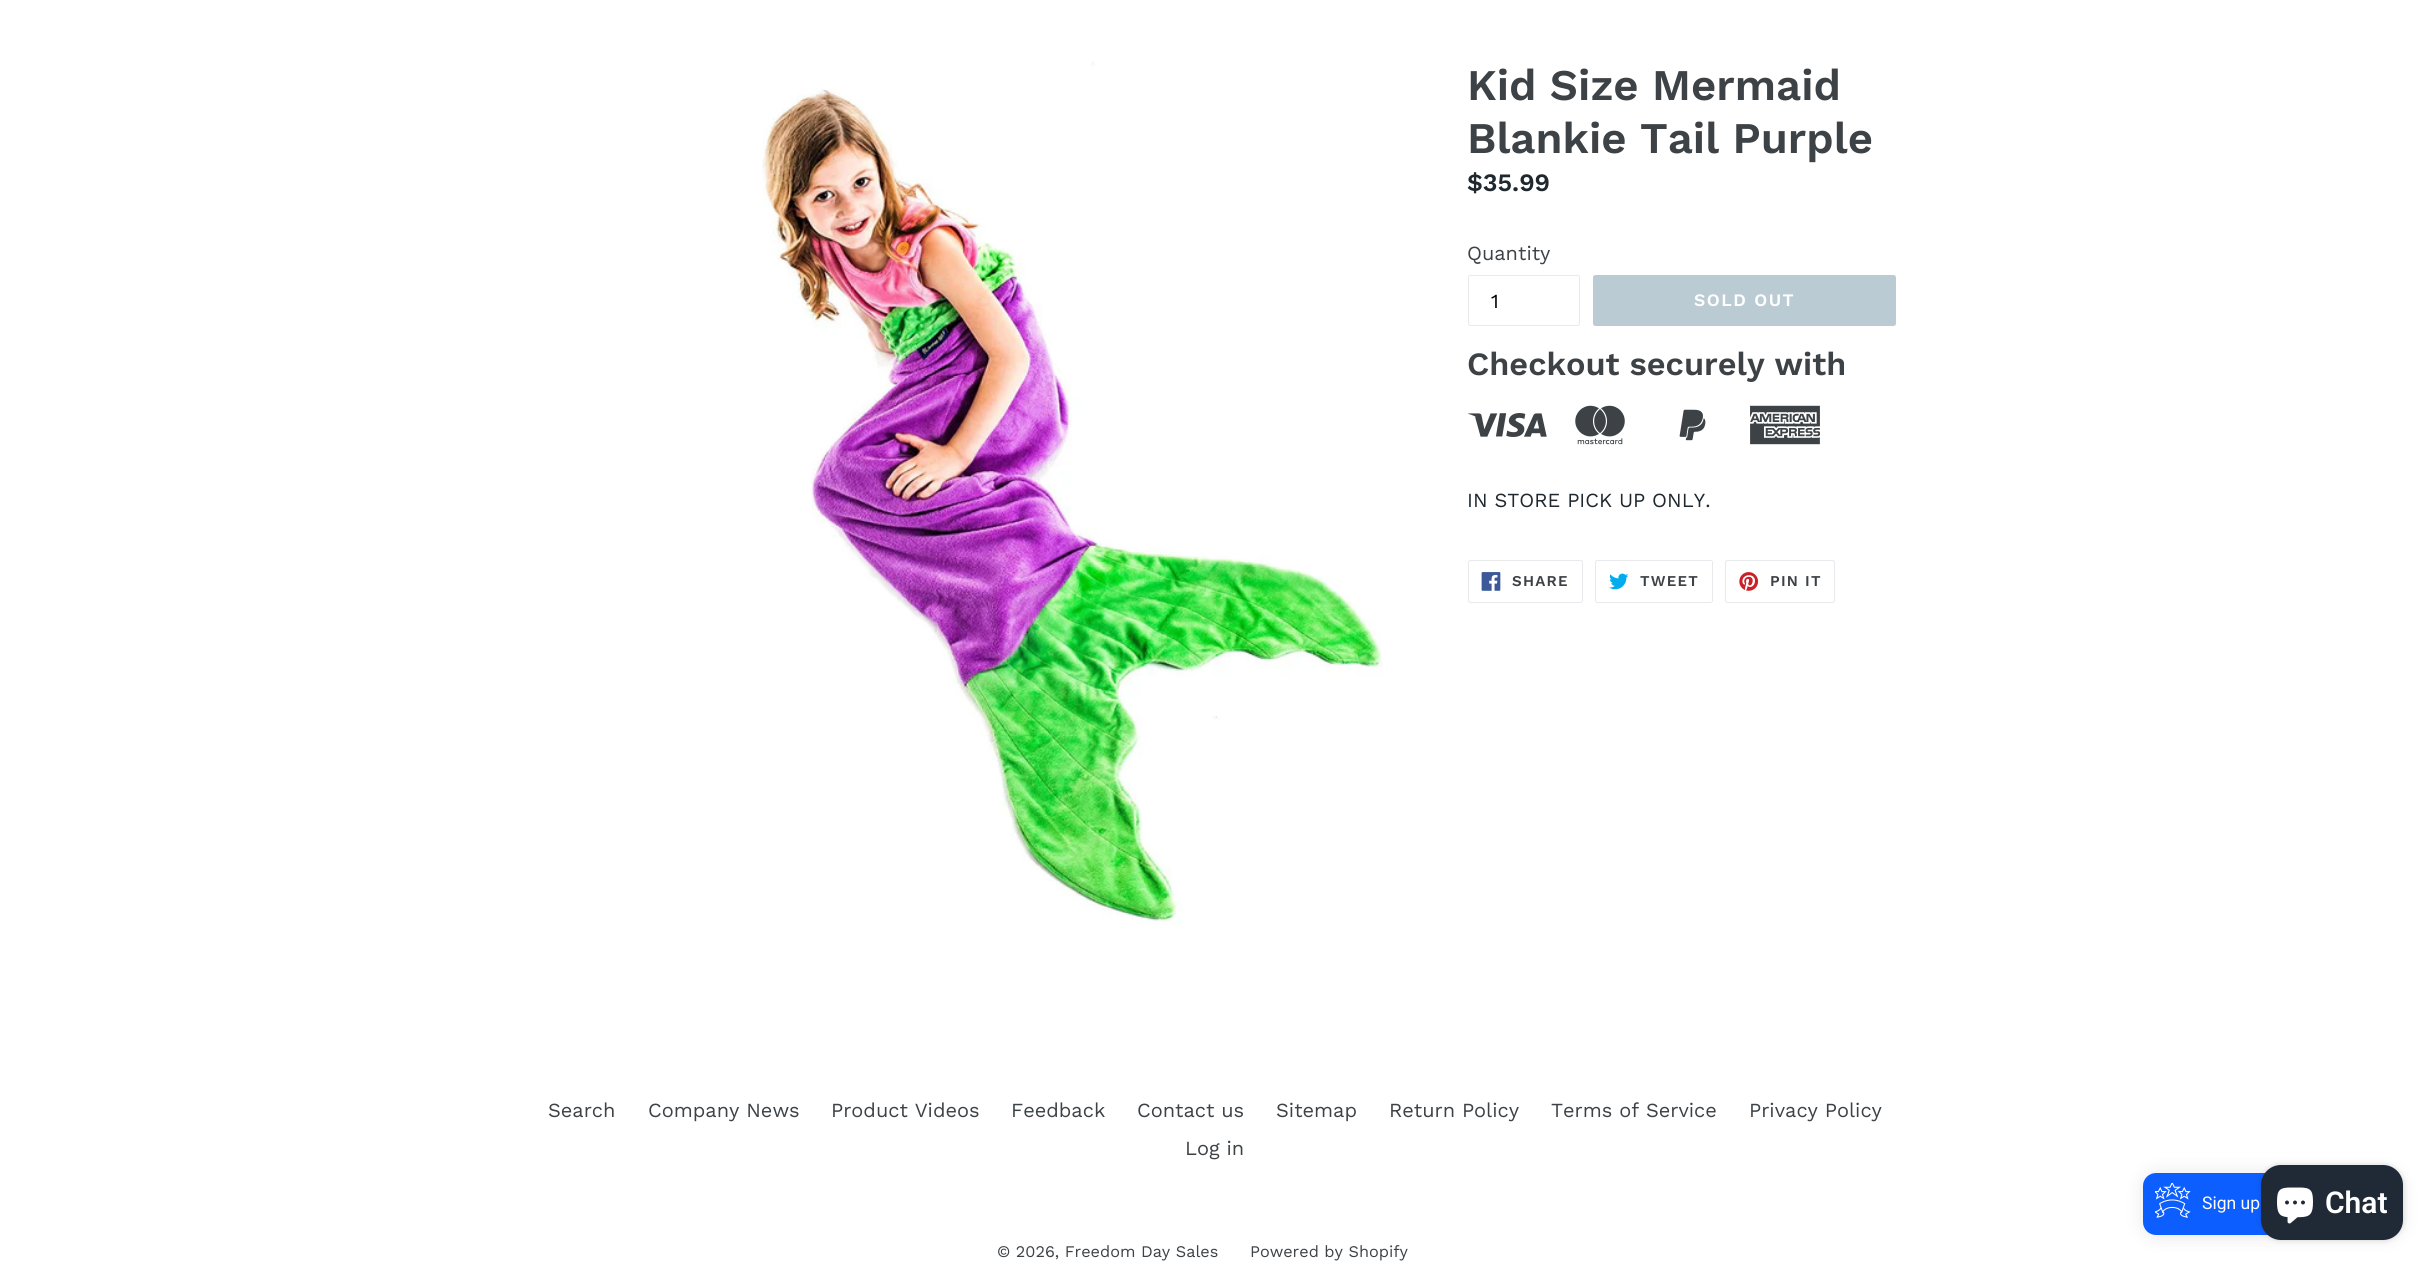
import math
import cairo

surface = cairo.ImageSurface(cairo.FORMAT_RGB24, 2430, 1266)
ctx = cairo.Context(surface)
options = cairo.FontOptions()
options.set_hint_metrics(cairo.HINT_METRICS_OFF)
options.set_hint_style(cairo.HINT_STYLE_NONE)
ctx.set_font_options(options)
ctx.set_miter_limit(4)


def spaced_text(x, y, s, letter, word):
    ctx.move_to(x, y)
    for ch in s:
        ctx.show_text(ch)
        ctx.rel_move_to(letter + word * (ch == ' '), 0)


def round_rect(x, y, w, h, r):
    ctx.new_sub_path()
    for i, (u, v) in enumerate([(x + w - r, y + h - r), (x + r, y + h - r), (x + r, y + r), (x + w - r, y + r)]):
        ctx.arc(u, v, r, i * math.pi / 2, (i + 1) * math.pi / 2)
    ctx.close_path()


def shadow(x, y, w, h, r, blur, alpha):
    ctx.push_group_with_content(cairo.CONTENT_ALPHA)
    ctx.set_operator(cairo.OPERATOR_SOURCE)
    for i in range(15, -16, -2):
        e = blur * i / 6
        if min(w, h) + 2 * e > 0:
            ctx.set_source_rgba(0, 0, 0, alpha * math.erfc((i - 1) / 8.5) / 2)
            round_rect(x - e, y - e, w + 2 * e, h + 2 * e, max(0, min(r + e + blur * .6, min(w, h) / 2 + e)))
            ctx.fill()
    ctx.mask(ctx.pop_group())


def picture(path, x, y, w, h):
    ctx.save()
    ctx.set_source_surface(cairo.ImageSurface.create_from_png(path), x, y)
    ctx.rectangle(x, y, w, h)
    ctx.fill()
    ctx.restore()


ctx.set_source_rgb(1, 1, 1)
ctx.paint()
picture("img1.png", 762, 61, 621, 864)
ctx.select_font_face("Work Sans SemiBold")
ctx.set_font_size(43.75)
ctx.set_source_rgb(0.239, 0.259, 0.275)
ctx.move_to(1467, 100)
ctx.show_text("Kid Size Mermaid")
ctx.move_to(1467, 153)
ctx.show_text("Blankie Tail Purple")
ctx.set_font_size(25)
ctx.set_source_rgb(0.122, 0.157, 0.184)
ctx.move_to(1467, 191)
ctx.show_text("$35.99")
ctx.select_font_face("Work Sans")
ctx.set_font_size(20)
ctx.set_source_rgb(0.239, 0.259, 0.275)
ctx.move_to(1467, 260)
ctx.show_text("Quantity")
round_rect(1468.5, 275.5, 111, 50, 2)
ctx.set_source_rgb(0.91, 0.914, 0.922)
ctx.set_line_width(1)
ctx.stroke()
ctx.set_source_rgb(0, 0, 0)
ctx.move_to(1491, 308)
ctx.show_text("1")
ctx.set_source_rgb(0.733, 0.796, 0.831)
round_rect(1593, 275, 303, 51, 2.5)
ctx.fill()
ctx.select_font_face("Work Sans SemiBold")
ctx.set_font_size(17.5)
ctx.set_source_rgb(1, 1, 1)
spaced_text(1694, 306, "SOLD OUT", 1.5, 0)
ctx.set_font_size(32.5)
ctx.set_source_rgb(0.239, 0.259, 0.275)
ctx.move_to(1467, 375)
ctx.show_text("Checkout securely with")
picture("img2.png", 1468, 413, 79, 24)
picture("img3.png", 1575, 405, 50, 40)
picture("img4.png", 1679, 409, 27, 32)
picture("img5.png", 1750, 405, 70, 40)
ctx.select_font_face("Work Sans")
ctx.set_font_size(20)
ctx.set_source_rgb(0.122, 0.157, 0.184)
ctx.move_to(1467, 507)
ctx.show_text("IN STORE PICK UP ONLY.")
round_rect(1468.5, 560.5, 114, 42, 2)
ctx.set_source_rgb(0.91, 0.914, 0.922)
ctx.stroke()
picture("img6.png", 1481, 572, 20, 19)
ctx.select_font_face("Work Sans SemiBold")
ctx.set_font_size(15)
ctx.set_source_rgb(0.239, 0.259, 0.275)
spaced_text(1512, 586, "SHARE", 1.25, 0)
round_rect(1595.5, 560.5, 117, 42, 2)
ctx.set_source_rgb(0.91, 0.914, 0.922)
ctx.stroke()
picture("img7.png", 1609, 573, 20, 17)
ctx.set_source_rgb(0.239, 0.259, 0.275)
spaced_text(1640, 586, "TWEET", 1.25, 0)
round_rect(1725.5, 560.5, 109, 42, 2)
ctx.set_source_rgb(0.91, 0.914, 0.922)
ctx.stroke()
picture("img8.png", 1739, 572, 20, 19)
ctx.set_source_rgb(0.239, 0.259, 0.275)
spaced_text(1770, 586, "PIN IT", 1.25, 0)
ctx.select_font_face("Work Sans")
ctx.set_font_size(20)
ctx.move_to(548, 1117)
ctx.show_text("Search")
ctx.move_to(648, 1117)
ctx.show_text("Company News")
ctx.move_to(831, 1117)
ctx.show_text("Product Videos")
ctx.move_to(1011, 1117)
ctx.show_text("Feedback")
ctx.move_to(1137, 1117)
ctx.show_text("Contact us")
ctx.move_to(1276, 1117)
ctx.show_text("Sitemap")
ctx.move_to(1389, 1117)
ctx.show_text("Return Policy")
ctx.move_to(1551, 1117)
ctx.show_text("Terms of Service")
ctx.move_to(1749, 1117)
ctx.show_text("Privacy Policy")
ctx.move_to(1185, 1155)
ctx.show_text("Log in")
ctx.set_font_size(16.25)
ctx.move_to(997, 1257)
ctx.show_text("© 2026, Freedom Day Sales")
ctx.move_to(1250, 1257)
ctx.show_text("Powered by Shopify")
ctx.set_source_rgb(0, 0, 0)
shadow(2144, 1174, 256, 62, 13, 9.5, 0.1)
ctx.set_source_rgb(0.051, 0.369, 1)
round_rect(2143, 1173, 256, 62, 13)
ctx.fill()
picture("img9.png", 2155, 1183, 36, 35)
ctx.select_font_face("Roboto")
ctx.set_font_size(17.5)
ctx.set_source_rgb(1, 1, 1)
ctx.move_to(2202, 1209)
ctx.show_text("Sign up")
ctx.set_source_rgb(0, 0, 0)
shadow(2261, 1165, 142, 75, 20, 3, 0.15)
ctx.set_source_rgb(0.125, 0.165, 0.212)
round_rect(2261, 1165, 142, 75, 20)
ctx.fill()
picture("img10.png", 2277, 1187, 36, 37)
ctx.select_font_face("Roboto SemiBold")
ctx.set_font_size(30)
ctx.set_source_rgb(1, 1, 1)
ctx.move_to(2325, 1213)
ctx.show_text("Chat")
surface.write_to_png("page.png")
